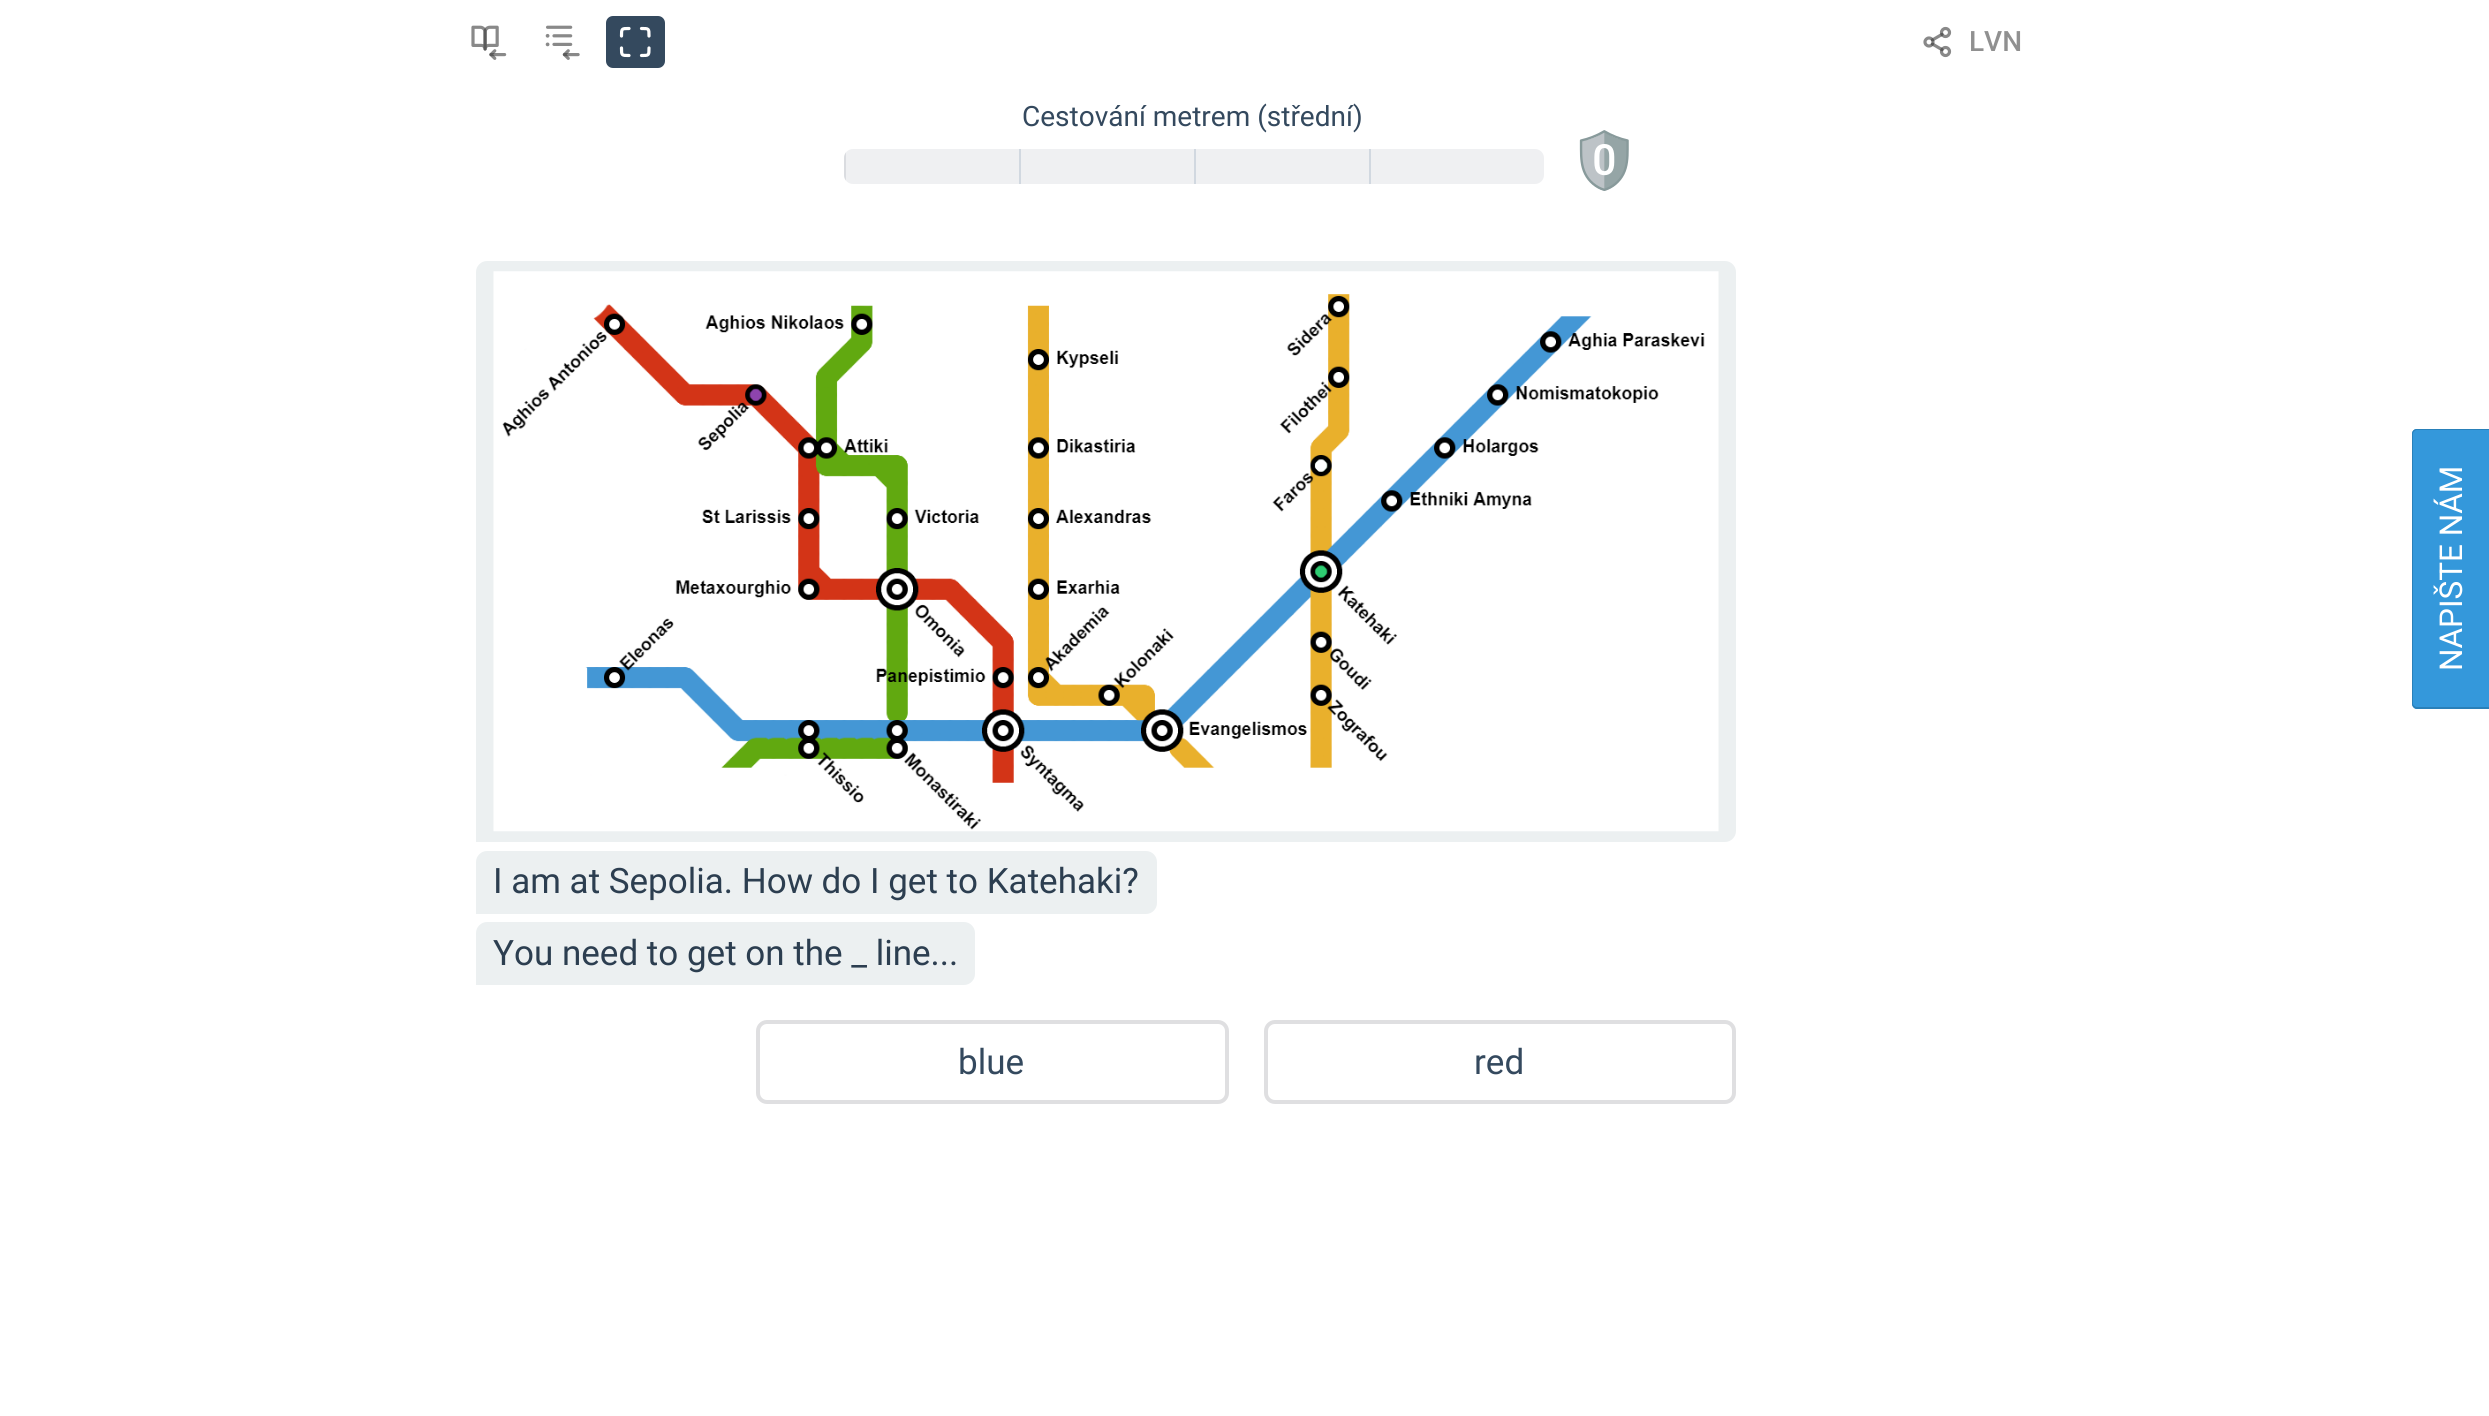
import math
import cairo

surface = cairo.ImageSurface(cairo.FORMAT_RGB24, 2489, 1416)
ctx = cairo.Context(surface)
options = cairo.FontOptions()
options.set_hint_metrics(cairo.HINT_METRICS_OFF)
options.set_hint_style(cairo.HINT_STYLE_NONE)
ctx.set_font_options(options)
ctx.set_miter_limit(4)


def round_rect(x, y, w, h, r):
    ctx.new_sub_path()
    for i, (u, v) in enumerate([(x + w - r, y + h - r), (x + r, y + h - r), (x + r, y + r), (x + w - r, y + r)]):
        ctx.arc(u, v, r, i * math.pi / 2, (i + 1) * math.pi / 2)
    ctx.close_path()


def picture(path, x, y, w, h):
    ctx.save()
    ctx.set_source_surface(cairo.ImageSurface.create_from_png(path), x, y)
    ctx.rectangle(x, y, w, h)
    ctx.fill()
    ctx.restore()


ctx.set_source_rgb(1, 1, 1)
ctx.paint()
picture("img1.png", 471, 25, 36, 35)
picture("img2.png", 545, 25, 35, 35)
ctx.set_source_rgb(0.204, 0.286, 0.369)
round_rect(606, 16, 59, 52, 7)
ctx.fill()
ctx.new_path()
ctx.move_to(629, 28.5)
ctx.curve_to(621.5, 28.5, 621.5, 28.5, 621.5, 36)
ctx.move_to(649, 36)
ctx.curve_to(649, 28.5, 649, 28.5, 641.5, 28.5)
ctx.move_to(641.5, 55.5)
ctx.curve_to(649, 55.5, 649, 55.5, 649, 48)
ctx.move_to(621.5, 48)
ctx.curve_to(621.5, 55.5, 621.5, 55.5, 629, 55.5)
ctx.set_source_rgb(1, 1, 1)
ctx.set_line_width(3.2)
ctx.set_line_cap(cairo.LINE_CAP_ROUND)
ctx.set_line_join(cairo.LINE_JOIN_ROUND)
ctx.stroke()
picture("img3.png", 1923, 26, 29, 32)
ctx.select_font_face("Roboto Medium")
ctx.set_font_size(28)
ctx.set_source_rgb(0.565, 0.565, 0.565)
ctx.move_to(1969, 51)
ctx.show_text("LVN")
ctx.select_font_face("Roboto")
ctx.set_source_rgb(0.204, 0.286, 0.369)
ctx.move_to(1022, 126)
ctx.show_text("Cestování metrem (střední)")
ctx.set_source_rgb(0.937, 0.941, 0.949)
round_rect(844, 149, 700, 35, 9)
ctx.fill()
ctx.save()
round_rect(844, 149, 700, 35, 9)
ctx.clip()
ctx.set_source_rgba(0.796, 0.812, 0.827, 0.6)
ctx.rectangle(844, 151, 2, 33)
ctx.fill()
ctx.restore()
ctx.set_source_rgb(0.82, 0.847, 0.878)
ctx.rectangle(1019, 149, 2, 35)
ctx.fill()
ctx.rectangle(1194, 149, 2, 35)
ctx.fill()
ctx.rectangle(1369, 149, 2, 35)
ctx.fill()
picture("img4.png", 1579, 130, 50, 61)
ctx.set_source_rgb(0.925, 0.941, 0.945)
ctx.new_path()
ctx.move_to(487, 261)
ctx.line_to(1725, 261)
ctx.curve_to(1731, 261, 1736, 266, 1736, 272)
ctx.line_to(1736, 831)
ctx.curve_to(1736, 837, 1731, 842, 1725, 842)
ctx.line_to(476, 842)
ctx.line_to(476, 272)
ctx.curve_to(476, 266, 481, 261, 487, 261)
ctx.close_path()
ctx.fill()
picture("img5.png", 493, 271, 1226, 561)
ctx.new_path()
ctx.move_to(487, 851)
ctx.line_to(1146, 851)
ctx.curve_to(1152, 851, 1157, 856, 1157, 862)
ctx.line_to(1157, 903)
ctx.curve_to(1157, 909, 1152, 914, 1146, 914)
ctx.line_to(476, 914)
ctx.line_to(476, 862)
ctx.curve_to(476, 856, 481, 851, 487, 851)
ctx.close_path()
ctx.fill()
ctx.set_font_size(35)
ctx.set_source_rgb(0.173, 0.243, 0.314)
ctx.move_to(493, 893)
ctx.show_text("I am at Sepolia. How do I get to Katehaki?")
ctx.set_source_rgb(0.925, 0.941, 0.945)
ctx.new_path()
ctx.move_to(487, 922)
ctx.line_to(964, 922)
ctx.curve_to(970, 922, 975, 927, 975, 933)
ctx.line_to(975, 974)
ctx.curve_to(975, 980, 970, 985, 964, 985)
ctx.line_to(476, 985)
ctx.line_to(476, 933)
ctx.curve_to(476, 927, 481, 922, 487, 922)
ctx.close_path()
ctx.fill()
ctx.set_source_rgb(0.173, 0.243, 0.314)
ctx.move_to(493, 965)
ctx.show_text("You need to get on the _ line...")
round_rect(758, 1022, 469, 80, 9)
ctx.set_source_rgb(0.875, 0.875, 0.882)
ctx.set_line_width(4)
ctx.set_line_cap(cairo.LINE_CAP_BUTT)
ctx.set_line_join(cairo.LINE_JOIN_MITER)
ctx.stroke()
ctx.set_source_rgb(0.204, 0.286, 0.369)
ctx.move_to(958, 1074)
ctx.show_text("blue")
round_rect(1266, 1022, 468, 80, 9)
ctx.set_source_rgb(0.875, 0.875, 0.882)
ctx.stroke()
ctx.set_source_rgb(0.204, 0.286, 0.369)
ctx.move_to(1474, 1074)
ctx.show_text("red")
ctx.set_source_rgb(0.204, 0.596, 0.859)
ctx.new_path()
ctx.move_to(2412, 704)
ctx.line_to(2412, 434)
ctx.curve_to(2412, 431, 2414, 429, 2417, 429)
ctx.line_to(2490, 429)
ctx.line_to(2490, 709)
ctx.line_to(2417, 709)
ctx.curve_to(2414, 709, 2412, 706, 2412, 704)
ctx.close_path()
ctx.fill()
ctx.set_source_rgb(0.161, 0.502, 0.725)
ctx.set_fill_rule(cairo.FILL_RULE_EVEN_ODD)
ctx.new_path()
ctx.move_to(2412, 704)
ctx.line_to(2412, 434)
ctx.curve_to(2412, 431, 2414, 429, 2417, 429)
ctx.line_to(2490, 429)
ctx.line_to(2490, 709)
ctx.line_to(2417, 709)
ctx.curve_to(2414, 709, 2412, 706, 2412, 704)
ctx.close_path()
ctx.move_to(2413, 704)
ctx.line_to(2413, 434)
ctx.curve_to(2413, 432, 2415, 430, 2417, 430)
ctx.line_to(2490, 430)
ctx.line_to(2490, 707)
ctx.line_to(2417, 707)
ctx.curve_to(2415, 707, 2413, 705, 2413, 704)
ctx.close_path()
ctx.fill()
ctx.set_font_size(31.5)
ctx.set_source_rgb(1, 1, 1)
ctx.save()
ctx.translate(2462, 671)
ctx.rotate(-90 * math.pi / 180)
ctx.move_to(0, 0)
ctx.show_text("NAPIŠTE NÁM")
ctx.restore()
surface.write_to_png("page.png")
